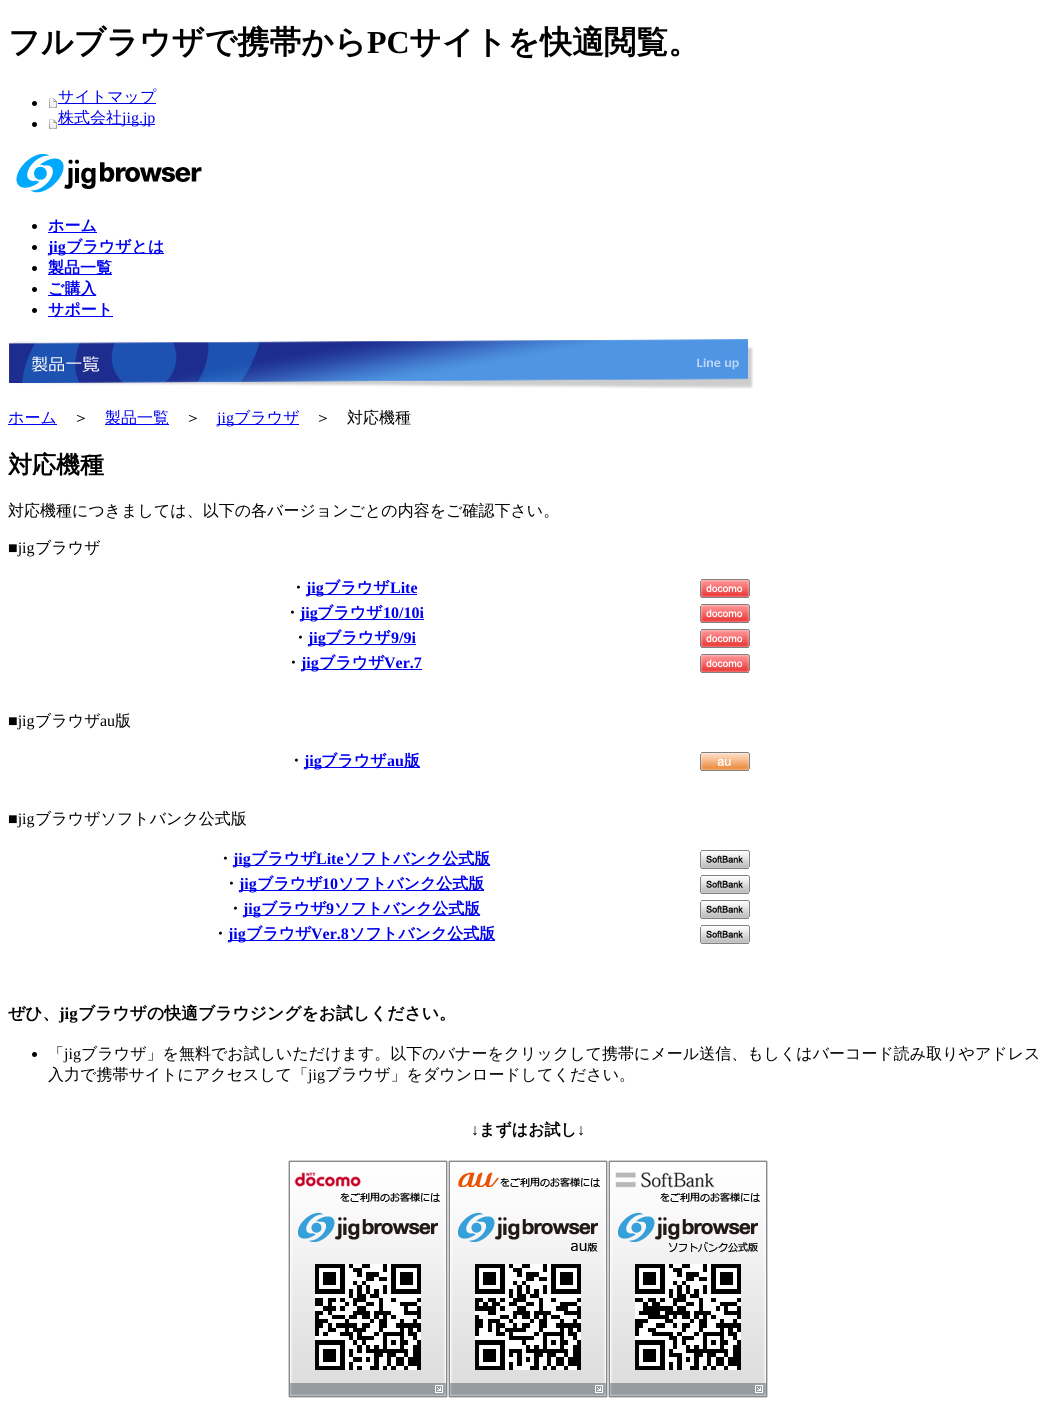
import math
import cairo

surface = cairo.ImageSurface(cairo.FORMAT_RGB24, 1056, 1408)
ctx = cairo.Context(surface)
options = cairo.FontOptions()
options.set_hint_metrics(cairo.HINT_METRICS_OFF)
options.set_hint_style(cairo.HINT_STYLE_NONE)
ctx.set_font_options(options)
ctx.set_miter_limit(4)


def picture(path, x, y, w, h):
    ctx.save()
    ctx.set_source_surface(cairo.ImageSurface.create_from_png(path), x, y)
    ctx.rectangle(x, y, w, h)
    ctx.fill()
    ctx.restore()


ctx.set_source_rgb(1, 1, 1)
ctx.paint()
ctx.select_font_face("WenQuanYi Zen Hei", cairo.FONT_SLANT_NORMAL, cairo.FONT_WEIGHT_BOLD)
ctx.set_font_size(32)
ctx.set_source_rgb(0, 0, 0)
ctx.move_to(8, 53)
ctx.show_text("フルブラウザで携帯から")
ctx.select_font_face("Liberation Serif", cairo.FONT_SLANT_NORMAL, cairo.FONT_WEIGHT_BOLD)
ctx.move_to(367, 53)
ctx.show_text("PC")
ctx.select_font_face("WenQuanYi Zen Hei", cairo.FONT_SLANT_NORMAL, cairo.FONT_WEIGHT_BOLD)
ctx.move_to(409, 53)
ctx.show_text("サイトを快適閲覧。")
ctx.new_path()
ctx.arc(34.5, 103.5, 2.5, 0, 2 * math.pi)
ctx.fill()
picture("img1.png", 49, 98, 8, 10)
ctx.set_source_rgb(0, 0, 0.933)
ctx.rectangle(58, 103, 98, 1)
ctx.fill()
ctx.select_font_face("WenQuanYi Zen Hei Medium")
ctx.set_font_size(16)
ctx.move_to(58, 102)
ctx.show_text("サイトマップ")
ctx.set_source_rgb(0, 0, 0)
ctx.new_path()
ctx.arc(34.5, 124.5, 2.5, 0, 2 * math.pi)
ctx.fill()
picture("img1.png", 49, 119, 8, 10)
ctx.set_source_rgb(0, 0, 0.933)
ctx.rectangle(58, 124, 97, 1)
ctx.fill()
ctx.move_to(58, 123)
ctx.show_text("株式会社")
ctx.select_font_face("Liberation Serif")
ctx.move_to(122, 123)
ctx.show_text("jig.jp")
picture("img2.png", 16, 154, 186, 39)
ctx.set_source_rgb(0, 0, 0)
ctx.arc(34.5, 226.5, 2.5, 0, 2 * math.pi)
ctx.fill()
ctx.set_source_rgb(0, 0, 0.933)
ctx.rectangle(48, 232, 49, 1)
ctx.fill()
ctx.select_font_face("WenQuanYi Zen Hei", cairo.FONT_SLANT_NORMAL, cairo.FONT_WEIGHT_BOLD)
ctx.move_to(48, 231)
ctx.show_text("ホーム")
ctx.set_source_rgb(0, 0, 0)
ctx.new_path()
ctx.arc(34.5, 247.5, 2.5, 0, 2 * math.pi)
ctx.fill()
ctx.set_source_rgb(0, 0, 0.933)
ctx.rectangle(48, 253, 116, 1)
ctx.fill()
ctx.select_font_face("Liberation Serif", cairo.FONT_SLANT_NORMAL, cairo.FONT_WEIGHT_BOLD)
ctx.move_to(48, 252)
ctx.show_text("jig")
ctx.select_font_face("WenQuanYi Zen Hei", cairo.FONT_SLANT_NORMAL, cairo.FONT_WEIGHT_BOLD)
ctx.move_to(66, 252)
ctx.show_text("ブラウザとは")
ctx.set_source_rgb(0, 0, 0)
ctx.new_path()
ctx.arc(34.5, 268.5, 2.5, 0, 2 * math.pi)
ctx.fill()
ctx.set_source_rgb(0, 0, 0.933)
ctx.rectangle(48, 274, 64, 1)
ctx.fill()
ctx.move_to(48, 273)
ctx.show_text("製品一覧")
ctx.set_source_rgb(0, 0, 0)
ctx.new_path()
ctx.arc(34.5, 289.5, 2.5, 0, 2 * math.pi)
ctx.fill()
ctx.set_source_rgb(0, 0, 0.933)
ctx.rectangle(48, 295, 48, 1)
ctx.fill()
ctx.move_to(48, 294)
ctx.show_text("ご購入")
ctx.set_source_rgb(0, 0, 0)
ctx.new_path()
ctx.arc(34.5, 310.5, 2.5, 0, 2 * math.pi)
ctx.fill()
ctx.set_source_rgb(0, 0, 0.933)
ctx.rectangle(48, 316, 65, 1)
ctx.fill()
ctx.move_to(48, 315)
ctx.show_text("サポート")
picture("img3.png", 9, 339, 745, 50)
ctx.rectangle(8, 424, 49, 1)
ctx.fill()
ctx.select_font_face("WenQuanYi Zen Hei Medium")
ctx.move_to(8, 423)
ctx.show_text("ホーム")
ctx.set_source_rgb(0, 0, 0)
ctx.move_to(73, 423)
ctx.show_text("＞")
ctx.set_source_rgb(0, 0, 0.933)
ctx.rectangle(105, 424, 64, 1)
ctx.fill()
ctx.move_to(105, 423)
ctx.show_text("製品一覧")
ctx.set_source_rgb(0, 0, 0)
ctx.move_to(185, 423)
ctx.show_text("＞")
ctx.set_source_rgb(0, 0, 0.933)
ctx.rectangle(217, 424, 82, 1)
ctx.fill()
ctx.select_font_face("Liberation Serif")
ctx.move_to(217, 423)
ctx.show_text("jig")
ctx.select_font_face("WenQuanYi Zen Hei Medium")
ctx.move_to(234, 423)
ctx.show_text("ブラウザ")
ctx.set_source_rgb(0, 0, 0)
ctx.move_to(315, 423)
ctx.show_text("＞　対応機種")
ctx.select_font_face("WenQuanYi Zen Hei", cairo.FONT_SLANT_NORMAL, cairo.FONT_WEIGHT_BOLD)
ctx.set_font_size(24)
ctx.move_to(8, 473)
ctx.show_text("対応機種")
ctx.select_font_face("WenQuanYi Zen Hei Medium")
ctx.set_font_size(16)
ctx.move_to(8, 516)
ctx.show_text("対応機種につきましては、以下の各バージョンごとの内容をご確認下さい。")
ctx.select_font_face("Liberation Serif")
ctx.move_to(8, 553)
ctx.show_text("■jig")
ctx.select_font_face("WenQuanYi Zen Hei Medium")
ctx.move_to(35, 553)
ctx.show_text("ブラウザ")
ctx.select_font_face("WenQuanYi Zen Hei", cairo.FONT_SLANT_NORMAL, cairo.FONT_WEIGHT_BOLD)
ctx.move_to(290, 593)
ctx.show_text("・")
ctx.set_source_rgb(0, 0, 0.933)
ctx.rectangle(306, 594, 111, 1)
ctx.fill()
ctx.select_font_face("Liberation Serif", cairo.FONT_SLANT_NORMAL, cairo.FONT_WEIGHT_BOLD)
ctx.move_to(306, 593)
ctx.show_text("jig")
ctx.select_font_face("WenQuanYi Zen Hei", cairo.FONT_SLANT_NORMAL, cairo.FONT_WEIGHT_BOLD)
ctx.move_to(324, 593)
ctx.show_text("ブラウザ")
ctx.select_font_face("Liberation Serif", cairo.FONT_SLANT_NORMAL, cairo.FONT_WEIGHT_BOLD)
ctx.move_to(390, 593)
ctx.show_text("Lite")
picture("img4.png", 700, 579, 50, 19)
ctx.select_font_face("WenQuanYi Zen Hei", cairo.FONT_SLANT_NORMAL, cairo.FONT_WEIGHT_BOLD)
ctx.set_source_rgb(0, 0, 0)
ctx.move_to(284, 618)
ctx.show_text("・")
ctx.set_source_rgb(0, 0, 0.933)
ctx.rectangle(300, 619, 124, 1)
ctx.fill()
ctx.select_font_face("Liberation Serif", cairo.FONT_SLANT_NORMAL, cairo.FONT_WEIGHT_BOLD)
ctx.move_to(300, 618)
ctx.show_text("jig")
ctx.select_font_face("WenQuanYi Zen Hei", cairo.FONT_SLANT_NORMAL, cairo.FONT_WEIGHT_BOLD)
ctx.move_to(317, 618)
ctx.show_text("ブラウザ")
ctx.select_font_face("Liberation Serif", cairo.FONT_SLANT_NORMAL, cairo.FONT_WEIGHT_BOLD)
ctx.move_to(383, 618)
ctx.show_text("10/10i")
picture("img4.png", 700, 604, 50, 19)
ctx.select_font_face("WenQuanYi Zen Hei", cairo.FONT_SLANT_NORMAL, cairo.FONT_WEIGHT_BOLD)
ctx.set_source_rgb(0, 0, 0)
ctx.move_to(292, 643)
ctx.show_text("・")
ctx.set_source_rgb(0, 0, 0.933)
ctx.rectangle(308, 644, 108, 1)
ctx.fill()
ctx.select_font_face("Liberation Serif", cairo.FONT_SLANT_NORMAL, cairo.FONT_WEIGHT_BOLD)
ctx.move_to(308, 643)
ctx.show_text("jig")
ctx.select_font_face("WenQuanYi Zen Hei", cairo.FONT_SLANT_NORMAL, cairo.FONT_WEIGHT_BOLD)
ctx.move_to(325, 643)
ctx.show_text("ブラウザ")
ctx.select_font_face("Liberation Serif", cairo.FONT_SLANT_NORMAL, cairo.FONT_WEIGHT_BOLD)
ctx.move_to(391, 643)
ctx.show_text("9/9i")
picture("img4.png", 700, 629, 50, 19)
ctx.select_font_face("WenQuanYi Zen Hei", cairo.FONT_SLANT_NORMAL, cairo.FONT_WEIGHT_BOLD)
ctx.set_source_rgb(0, 0, 0)
ctx.move_to(285, 668)
ctx.show_text("・")
ctx.set_source_rgb(0, 0, 0.933)
ctx.rectangle(301, 669, 121, 1)
ctx.fill()
ctx.select_font_face("Liberation Serif", cairo.FONT_SLANT_NORMAL, cairo.FONT_WEIGHT_BOLD)
ctx.move_to(301, 668)
ctx.show_text("jig")
ctx.select_font_face("WenQuanYi Zen Hei", cairo.FONT_SLANT_NORMAL, cairo.FONT_WEIGHT_BOLD)
ctx.move_to(319, 668)
ctx.show_text("ブラウザ")
ctx.select_font_face("Liberation Serif", cairo.FONT_SLANT_NORMAL, cairo.FONT_WEIGHT_BOLD)
ctx.move_to(384, 668)
ctx.show_text("Ver.7")
picture("img4.png", 700, 654, 50, 19)
ctx.select_font_face("Liberation Serif")
ctx.set_source_rgb(0, 0, 0)
ctx.move_to(8, 726)
ctx.show_text("■jig")
ctx.select_font_face("WenQuanYi Zen Hei Medium")
ctx.move_to(35, 726)
ctx.show_text("ブラウザ")
ctx.select_font_face("Liberation Serif")
ctx.move_to(100, 726)
ctx.show_text("au")
ctx.select_font_face("WenQuanYi Zen Hei Medium")
ctx.move_to(115, 726)
ctx.show_text("版")
ctx.select_font_face("WenQuanYi Zen Hei", cairo.FONT_SLANT_NORMAL, cairo.FONT_WEIGHT_BOLD)
ctx.move_to(288, 766)
ctx.show_text("・")
ctx.set_source_rgb(0, 0, 0.933)
ctx.rectangle(304, 767, 116, 1)
ctx.fill()
ctx.select_font_face("Liberation Serif", cairo.FONT_SLANT_NORMAL, cairo.FONT_WEIGHT_BOLD)
ctx.move_to(304, 766)
ctx.show_text("jig")
ctx.select_font_face("WenQuanYi Zen Hei", cairo.FONT_SLANT_NORMAL, cairo.FONT_WEIGHT_BOLD)
ctx.move_to(321, 766)
ctx.show_text("ブラウザ")
ctx.select_font_face("Liberation Serif", cairo.FONT_SLANT_NORMAL, cairo.FONT_WEIGHT_BOLD)
ctx.move_to(387, 766)
ctx.show_text("au")
ctx.select_font_face("WenQuanYi Zen Hei", cairo.FONT_SLANT_NORMAL, cairo.FONT_WEIGHT_BOLD)
ctx.move_to(404, 766)
ctx.show_text("版")
picture("img5.png", 700, 752, 50, 19)
ctx.select_font_face("Liberation Serif")
ctx.set_source_rgb(0, 0, 0)
ctx.move_to(8, 824)
ctx.show_text("■jig")
ctx.select_font_face("WenQuanYi Zen Hei Medium")
ctx.move_to(35, 824)
ctx.show_text("ブラウザソフトバンク公式版")
ctx.select_font_face("WenQuanYi Zen Hei", cairo.FONT_SLANT_NORMAL, cairo.FONT_WEIGHT_BOLD)
ctx.move_to(217, 864)
ctx.show_text("・")
ctx.set_source_rgb(0, 0, 0.933)
ctx.rectangle(233, 865, 257, 1)
ctx.fill()
ctx.select_font_face("Liberation Serif", cairo.FONT_SLANT_NORMAL, cairo.FONT_WEIGHT_BOLD)
ctx.move_to(233, 864)
ctx.show_text("jig")
ctx.select_font_face("WenQuanYi Zen Hei", cairo.FONT_SLANT_NORMAL, cairo.FONT_WEIGHT_BOLD)
ctx.move_to(251, 864)
ctx.show_text("ブラウザ")
ctx.select_font_face("Liberation Serif", cairo.FONT_SLANT_NORMAL, cairo.FONT_WEIGHT_BOLD)
ctx.move_to(316, 864)
ctx.show_text("Lite")
ctx.select_font_face("WenQuanYi Zen Hei", cairo.FONT_SLANT_NORMAL, cairo.FONT_WEIGHT_BOLD)
ctx.move_to(344, 864)
ctx.show_text("ソフトバンク公式版")
picture("img6.png", 700, 850, 50, 19)
ctx.set_source_rgb(0, 0, 0)
ctx.move_to(223, 889)
ctx.show_text("・")
ctx.set_source_rgb(0, 0, 0.933)
ctx.rectangle(239, 890, 245, 1)
ctx.fill()
ctx.select_font_face("Liberation Serif", cairo.FONT_SLANT_NORMAL, cairo.FONT_WEIGHT_BOLD)
ctx.move_to(239, 889)
ctx.show_text("jig")
ctx.select_font_face("WenQuanYi Zen Hei", cairo.FONT_SLANT_NORMAL, cairo.FONT_WEIGHT_BOLD)
ctx.move_to(257, 889)
ctx.show_text("ブラウザ")
ctx.select_font_face("Liberation Serif", cairo.FONT_SLANT_NORMAL, cairo.FONT_WEIGHT_BOLD)
ctx.move_to(322, 889)
ctx.show_text("10")
ctx.select_font_face("WenQuanYi Zen Hei", cairo.FONT_SLANT_NORMAL, cairo.FONT_WEIGHT_BOLD)
ctx.move_to(338, 889)
ctx.show_text("ソフトバンク公式版")
picture("img6.png", 700, 875, 50, 19)
ctx.set_source_rgb(0, 0, 0)
ctx.move_to(227, 914)
ctx.show_text("・")
ctx.set_source_rgb(0, 0, 0.933)
ctx.rectangle(243, 915, 237, 1)
ctx.fill()
ctx.select_font_face("Liberation Serif", cairo.FONT_SLANT_NORMAL, cairo.FONT_WEIGHT_BOLD)
ctx.move_to(243, 914)
ctx.show_text("jig")
ctx.select_font_face("WenQuanYi Zen Hei", cairo.FONT_SLANT_NORMAL, cairo.FONT_WEIGHT_BOLD)
ctx.move_to(261, 914)
ctx.show_text("ブラウザ")
ctx.select_font_face("Liberation Serif", cairo.FONT_SLANT_NORMAL, cairo.FONT_WEIGHT_BOLD)
ctx.move_to(326, 914)
ctx.show_text("9")
ctx.select_font_face("WenQuanYi Zen Hei", cairo.FONT_SLANT_NORMAL, cairo.FONT_WEIGHT_BOLD)
ctx.move_to(334, 914)
ctx.show_text("ソフトバンク公式版")
picture("img6.png", 700, 900, 50, 19)
ctx.set_source_rgb(0, 0, 0)
ctx.move_to(212, 939)
ctx.show_text("・")
ctx.set_source_rgb(0, 0, 0.933)
ctx.rectangle(228, 940, 267, 1)
ctx.fill()
ctx.select_font_face("Liberation Serif", cairo.FONT_SLANT_NORMAL, cairo.FONT_WEIGHT_BOLD)
ctx.move_to(228, 939)
ctx.show_text("jig")
ctx.select_font_face("WenQuanYi Zen Hei", cairo.FONT_SLANT_NORMAL, cairo.FONT_WEIGHT_BOLD)
ctx.move_to(246, 939)
ctx.show_text("ブラウザ")
ctx.select_font_face("Liberation Serif", cairo.FONT_SLANT_NORMAL, cairo.FONT_WEIGHT_BOLD)
ctx.move_to(311, 939)
ctx.show_text("Ver.8")
ctx.select_font_face("WenQuanYi Zen Hei", cairo.FONT_SLANT_NORMAL, cairo.FONT_WEIGHT_BOLD)
ctx.move_to(349, 939)
ctx.show_text("ソフトバンク公式版")
picture("img6.png", 700, 925, 50, 19)
ctx.set_font_size(16.85)
ctx.set_source_rgb(0, 0, 0)
ctx.move_to(8, 1019)
ctx.show_text("ぜひ、")
ctx.select_font_face("Liberation Serif", cairo.FONT_SLANT_NORMAL, cairo.FONT_WEIGHT_BOLD)
ctx.move_to(59, 1019)
ctx.show_text("jig")
ctx.select_font_face("WenQuanYi Zen Hei", cairo.FONT_SLANT_NORMAL, cairo.FONT_WEIGHT_BOLD)
ctx.move_to(78, 1019)
ctx.show_text("ブラウザの快適ブラウジングをお試しください。")
ctx.new_path()
ctx.arc(34.5, 1054.5, 2.5, 0, 2 * math.pi)
ctx.fill()
ctx.select_font_face("WenQuanYi Zen Hei Medium")
ctx.set_font_size(16)
ctx.move_to(48, 1059)
ctx.show_text("「")
ctx.select_font_face("Liberation Serif")
ctx.move_to(64, 1059)
ctx.show_text("jig")
ctx.select_font_face("WenQuanYi Zen Hei Medium")
ctx.move_to(81, 1059)
ctx.show_text("ブラウザ」を無料でお試しいただけます。以下のバナーをクリックして携帯にメール送信、もしくはバーコード読み取りやアドレス")
ctx.move_to(48, 1080)
ctx.show_text("入力で携帯サイトにアクセスして「")
ctx.select_font_face("Liberation Serif")
ctx.move_to(308, 1080)
ctx.show_text("jig")
ctx.select_font_face("WenQuanYi Zen Hei Medium")
ctx.move_to(325, 1080)
ctx.show_text("ブラウザ」をダウンロードしてください。")
ctx.select_font_face("Liberation Serif", cairo.FONT_SLANT_NORMAL, cairo.FONT_WEIGHT_BOLD)
ctx.move_to(471, 1135)
ctx.show_text("↓")
ctx.select_font_face("WenQuanYi Zen Hei", cairo.FONT_SLANT_NORMAL, cairo.FONT_WEIGHT_BOLD)
ctx.move_to(479, 1135)
ctx.show_text("まずはお試し")
ctx.select_font_face("Liberation Serif", cairo.FONT_SLANT_NORMAL, cairo.FONT_WEIGHT_BOLD)
ctx.move_to(577, 1135)
ctx.show_text("↓")
picture("img7.png", 288, 1160, 160, 238)
picture("img8.png", 448, 1160, 160, 238)
picture("img9.png", 608, 1160, 160, 238)
surface.write_to_png("page.png")
